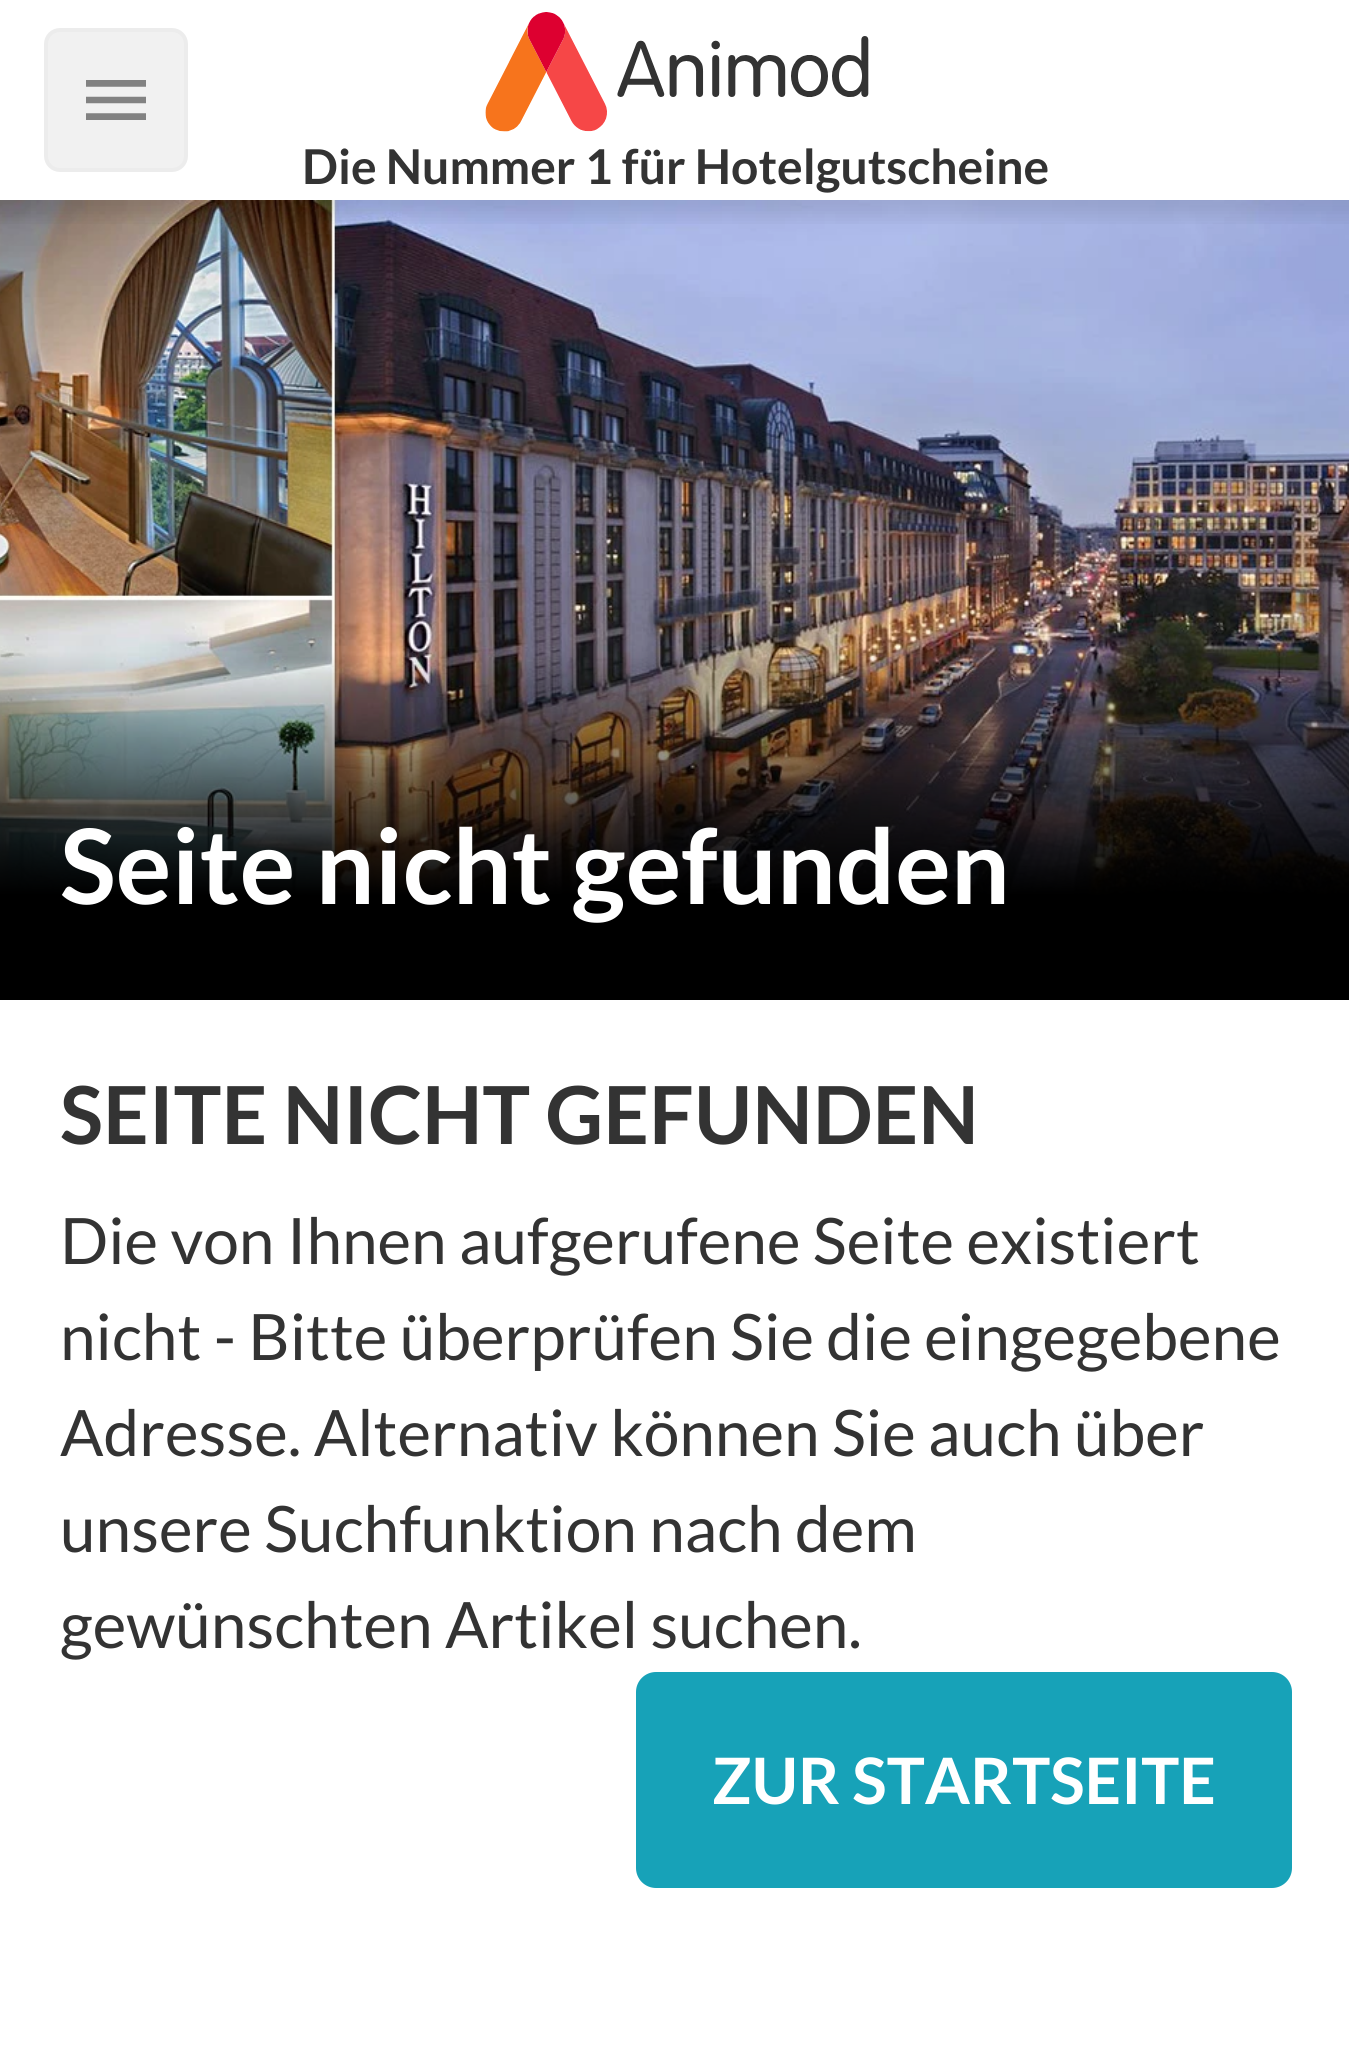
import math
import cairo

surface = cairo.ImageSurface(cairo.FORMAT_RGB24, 1349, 2060)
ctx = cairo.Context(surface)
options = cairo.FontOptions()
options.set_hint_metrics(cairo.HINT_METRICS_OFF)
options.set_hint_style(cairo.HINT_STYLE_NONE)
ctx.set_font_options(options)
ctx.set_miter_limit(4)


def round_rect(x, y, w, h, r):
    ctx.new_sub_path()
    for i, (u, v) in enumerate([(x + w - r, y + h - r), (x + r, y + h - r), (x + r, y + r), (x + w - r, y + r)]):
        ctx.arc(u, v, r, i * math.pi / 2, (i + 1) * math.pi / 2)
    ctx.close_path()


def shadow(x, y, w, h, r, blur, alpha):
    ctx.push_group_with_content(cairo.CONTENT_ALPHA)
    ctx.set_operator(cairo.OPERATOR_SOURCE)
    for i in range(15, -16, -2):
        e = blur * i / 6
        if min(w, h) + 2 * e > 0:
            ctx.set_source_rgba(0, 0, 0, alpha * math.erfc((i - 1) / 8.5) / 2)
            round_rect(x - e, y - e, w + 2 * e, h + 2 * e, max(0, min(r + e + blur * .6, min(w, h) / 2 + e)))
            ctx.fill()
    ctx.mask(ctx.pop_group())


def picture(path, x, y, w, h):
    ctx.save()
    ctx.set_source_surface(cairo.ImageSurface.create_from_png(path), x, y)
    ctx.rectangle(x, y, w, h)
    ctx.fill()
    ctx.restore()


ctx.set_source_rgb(1, 1, 1)
ctx.paint()
picture("img3.png", 0, 200, 1349, 800)
ctx.save()
ctx.rectangle(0, 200, 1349, 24)
ctx.clip()
ctx.set_source_rgb(0, 0, 0)
shadow(-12, -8, 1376, 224, 0, 10, 0.1)
ctx.restore()
ctx.set_source_rgb(0.945, 0.945, 0.945)
round_rect(46, 30, 140, 140, 14)
ctx.fill_preserve()
ctx.set_source_rgb(0.922, 0.922, 0.922)
ctx.set_line_width(4)
ctx.stroke()
picture("img1.png", 86, 80, 60, 40)
picture("img2.png", 485, 12, 384, 120)
ctx.select_font_face("Lato", cairo.FONT_SLANT_NORMAL, cairo.FONT_WEIGHT_BOLD)
ctx.set_font_size(48)
ctx.set_source_rgb(0.2, 0.2, 0.2)
ctx.move_to(302, 184)
ctx.show_text("Die Nummer 1 für Hotelgutscheine")
ctx.set_font_size(104)
ctx.set_source_rgb(1, 1, 1)
ctx.move_to(60, 904)
ctx.show_text("Seite nicht gefunden")
ctx.set_font_size(80)
ctx.set_source_rgb(0.2, 0.2, 0.2)
ctx.move_to(60, 1144)
ctx.show_text("SEITE NICHT GEFUNDEN")
ctx.select_font_face("Lato")
ctx.set_font_size(64)
ctx.move_to(60, 1264)
ctx.show_text("Die von Ihnen aufgerufene Seite existiert")
ctx.move_to(60, 1360)
ctx.show_text("nicht - Bitte überprüfen Sie die eingegebene")
ctx.move_to(60, 1456)
ctx.show_text("Adresse. Alternativ können Sie auch über")
ctx.move_to(60, 1552)
ctx.show_text("unsere Suchfunktion nach dem")
ctx.move_to(60, 1648)
ctx.show_text("gewünschten Artikel suchen.")
ctx.set_source_rgb(0.09, 0.635, 0.722)
round_rect(638, 1674, 652, 212, 18)
ctx.fill_preserve()
ctx.stroke()
ctx.select_font_face("Lato", cairo.FONT_SLANT_NORMAL, cairo.FONT_WEIGHT_BOLD)
ctx.set_source_rgb(1, 1, 1)
ctx.move_to(712, 1804)
ctx.show_text("ZUR STARTSEITE")
surface.write_to_png("page.png")
